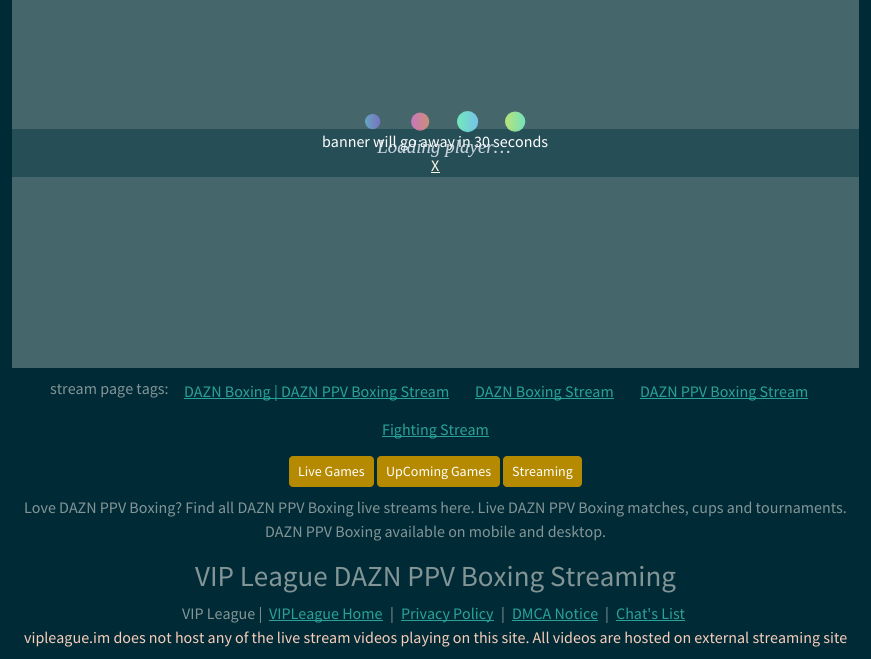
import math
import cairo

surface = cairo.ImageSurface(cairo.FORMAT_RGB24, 871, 659)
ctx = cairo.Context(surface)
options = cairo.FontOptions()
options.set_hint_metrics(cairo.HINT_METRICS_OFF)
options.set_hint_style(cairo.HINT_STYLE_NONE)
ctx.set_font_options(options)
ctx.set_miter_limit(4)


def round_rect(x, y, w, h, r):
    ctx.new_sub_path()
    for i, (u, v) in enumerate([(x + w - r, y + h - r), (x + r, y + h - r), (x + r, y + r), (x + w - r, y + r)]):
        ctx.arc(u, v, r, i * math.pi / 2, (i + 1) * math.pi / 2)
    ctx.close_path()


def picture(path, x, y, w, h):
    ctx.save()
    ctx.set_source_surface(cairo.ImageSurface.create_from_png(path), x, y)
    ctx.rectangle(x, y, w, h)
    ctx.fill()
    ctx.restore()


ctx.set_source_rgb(0, 0.169, 0.212)
ctx.paint()
ctx.set_source_rgb(0.271, 0.4, 0.416)
ctx.rectangle(12, 0, 847, 368)
ctx.fill()
ctx.set_source_rgb(0.149, 0.306, 0.337)
ctx.rectangle(12, 129, 847, 48)
ctx.fill()
ctx.select_font_face("Source Sans Pro")
ctx.set_font_size(16)
ctx.set_source_rgb(1, 1, 1)
ctx.move_to(322, 147)
ctx.show_text("banner will go away in 30 seconds")
picture("img1.png", 364, 111, 162, 46)
ctx.set_source_rgb(0.992, 0.965, 0.89)
ctx.move_to(431, 171)
ctx.show_text("X")
ctx.rectangle(431, 172, 9, 1)
ctx.fill()
ctx.set_source_rgb(0.514, 0.58, 0.588)
ctx.move_to(50, 394)
ctx.show_text("stream page tags:")
ctx.set_source_rgb(0.165, 0.631, 0.596)
ctx.rectangle(184, 398, 265, 1)
ctx.fill()
ctx.move_to(184, 397)
ctx.show_text("DAZN Boxing | DAZN PPV Boxing Stream")
ctx.rectangle(475, 398, 139, 1)
ctx.fill()
ctx.move_to(475, 397)
ctx.show_text("DAZN Boxing Stream")
ctx.rectangle(640, 398, 168, 1)
ctx.fill()
ctx.move_to(640, 397)
ctx.show_text("DAZN PPV Boxing Stream")
ctx.rectangle(382, 436, 107, 1)
ctx.fill()
ctx.move_to(382, 435)
ctx.show_text("Fighting Stream")
ctx.set_source_rgb(0.71, 0.537, 0)
round_rect(289.5, 456.5, 84, 30, 3.5)
ctx.fill_preserve()
ctx.set_line_width(1)
ctx.stroke()
ctx.set_font_size(14)
ctx.set_source_rgb(1, 1, 1)
ctx.move_to(298, 476)
ctx.show_text("Live Games")
ctx.set_source_rgb(0.71, 0.537, 0)
round_rect(377.5, 456.5, 122, 30, 3.5)
ctx.fill_preserve()
ctx.stroke()
ctx.set_source_rgb(1, 1, 1)
ctx.move_to(386, 476)
ctx.show_text("UpComing Games")
ctx.set_source_rgb(0.71, 0.537, 0)
round_rect(503.5, 456.5, 78, 30, 3.5)
ctx.fill_preserve()
ctx.stroke()
ctx.set_source_rgb(1, 1, 1)
ctx.move_to(512, 476)
ctx.show_text("Streaming")
ctx.set_font_size(16)
ctx.set_source_rgb(0.514, 0.58, 0.588)
ctx.move_to(24, 513)
ctx.show_text("Love DAZN PPV Boxing? Find all DAZN PPV Boxing live streams here. Live DAZN PPV Boxing matches, cups and tournaments.")
ctx.move_to(265, 537)
ctx.show_text("DAZN PPV Boxing available on mobile and desktop.")
ctx.set_font_size(29)
ctx.move_to(195, 586)
ctx.show_text("VIP League DAZN PPV Boxing Streaming")
ctx.set_font_size(16)
ctx.move_to(182, 619)
ctx.show_text("VIP League |")
ctx.set_source_rgb(0.165, 0.631, 0.596)
ctx.rectangle(269, 620, 114, 1)
ctx.fill()
ctx.move_to(269, 619)
ctx.show_text("VIPLeague Home")
ctx.set_source_rgb(0.514, 0.58, 0.588)
ctx.move_to(390, 619)
ctx.show_text("|")
ctx.set_source_rgb(0.165, 0.631, 0.596)
ctx.rectangle(401, 620, 93, 1)
ctx.fill()
ctx.move_to(401, 619)
ctx.show_text("Privacy Policy")
ctx.set_source_rgb(0.514, 0.58, 0.588)
ctx.move_to(501, 619)
ctx.show_text("|")
ctx.set_source_rgb(0.165, 0.631, 0.596)
ctx.move_to(512, 619)
ctx.show_text("DMCA Notice")
ctx.rectangle(512, 620, 86, 1)
ctx.fill()
ctx.set_source_rgb(0.514, 0.58, 0.588)
ctx.move_to(605, 619)
ctx.show_text("|")
ctx.set_source_rgb(0.165, 0.631, 0.596)
ctx.move_to(616, 619)
ctx.show_text("Chat's List")
ctx.rectangle(616, 620, 69, 1)
ctx.fill()
ctx.set_source_rgb(0.969, 0.804, 0.729)
ctx.move_to(24, 643)
ctx.show_text("vipleague.im does not host any of the live stream videos playing on this site. All videos are hosted on external streaming site")
surface.write_to_png("page.png")
